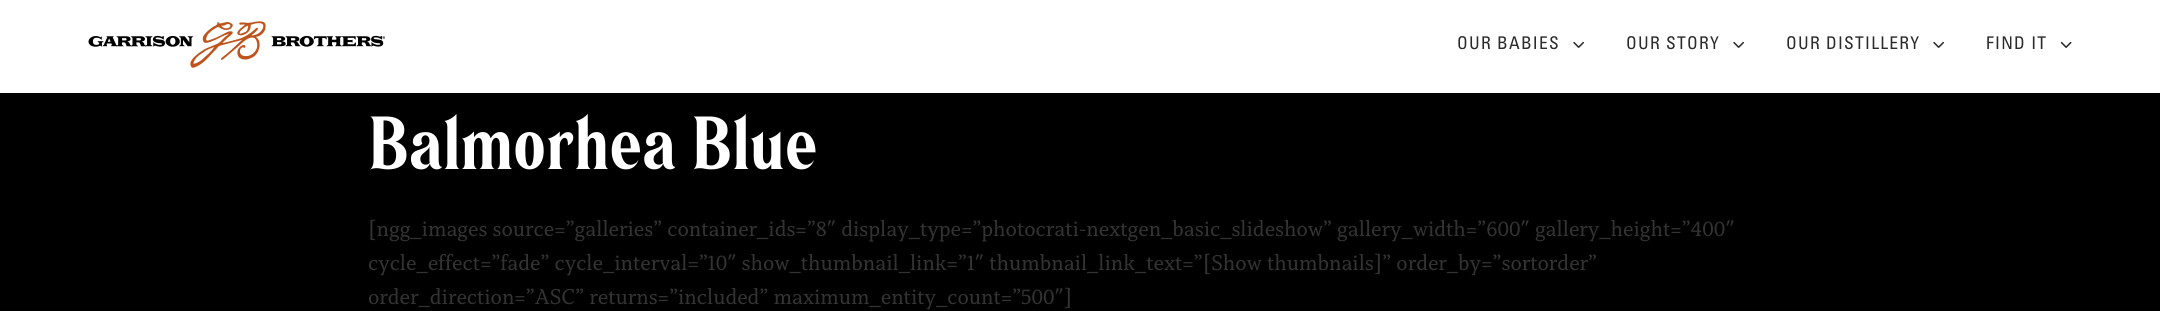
import math
import cairo

surface = cairo.ImageSurface(cairo.FORMAT_RGB24, 2160, 311)
ctx = cairo.Context(surface)
options = cairo.FontOptions()
options.set_hint_metrics(cairo.HINT_METRICS_OFF)
options.set_hint_style(cairo.HINT_STYLE_NONE)
ctx.set_font_options(options)
ctx.set_miter_limit(4)


def spaced_text(x, y, s, letter, word):
    ctx.move_to(x, y)
    for ch in s:
        ctx.show_text(ch)
        ctx.rel_move_to(letter + word * (ch == ' '), 0)


def picture(path, x, y, w, h):
    ctx.save()
    ctx.set_source_surface(cairo.ImageSurface.create_from_png(path), x, y)
    ctx.rectangle(x, y, w, h)
    ctx.fill()
    ctx.restore()


ctx.set_source_rgb(0, 0, 0)
ctx.paint()
ctx.set_source_rgb(1, 1, 1)
ctx.rectangle(0, 0, 2160, 93)
ctx.fill()
picture("img1.png", 88, 21, 298, 47)
ctx.select_font_face("Univers")
ctx.set_font_size(17.5)
ctx.set_source_rgb(0.169, 0.169, 0.169)
spaced_text(1457, 49, "OUR BABIES", 1.25, 0)
picture("img2.png", 1573, 41, 11, 7)
spaced_text(1626, 49, "OUR STORY", 1.25, 0)
picture("img2.png", 1733, 41, 11, 7)
spaced_text(1786, 49, "OUR DISTILLERY", 1.25, 0)
picture("img2.png", 1933, 41, 11, 7)
spaced_text(1986, 49, "FIND IT", 1.25, 0)
picture("img3.png", 2060, 41, 12, 7)
ctx.select_font_face("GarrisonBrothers")
ctx.set_font_size(75)
ctx.set_source_rgb(1, 1, 1)
ctx.move_to(368, 169)
ctx.show_text("Balmorhea Blue")
ctx.select_font_face("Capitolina")
ctx.set_font_size(22.5)
ctx.set_source_rgb(0.2, 0.2, 0.2)
ctx.move_to(368, 236)
ctx.show_text("[ngg_images source=”galleries” container_ids=”8″ display_type=”photocrati-nextgen_basic_slideshow” gallery_width=”600″ gallery_height=”400″")
ctx.move_to(368, 270)
ctx.show_text("cycle_effect=”fade” cycle_interval=”10″ show_thumbnail_link=”1″ thumbnail_link_text=”[Show thumbnails]” order_by=”sortorder”")
ctx.move_to(368, 304)
ctx.show_text("order_direction=”ASC” returns=”included” maximum_entity_count=”500″]")
surface.write_to_png("page.png")
